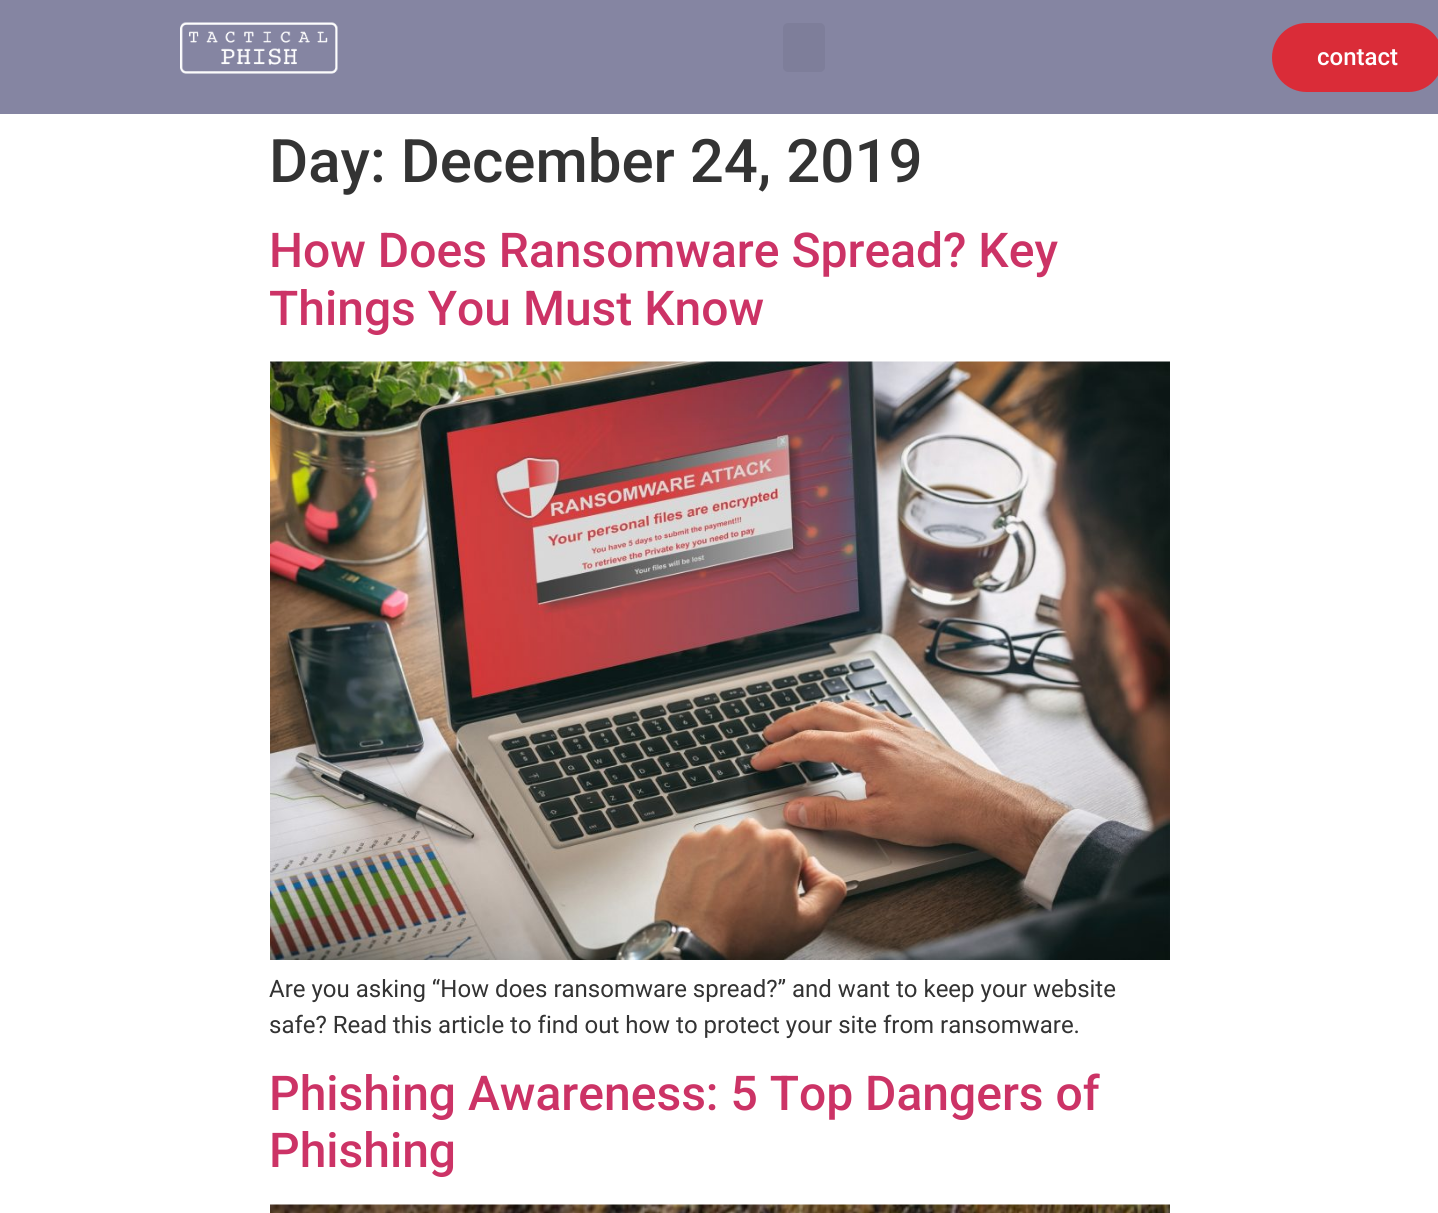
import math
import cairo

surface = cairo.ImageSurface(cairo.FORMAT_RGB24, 1438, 1213)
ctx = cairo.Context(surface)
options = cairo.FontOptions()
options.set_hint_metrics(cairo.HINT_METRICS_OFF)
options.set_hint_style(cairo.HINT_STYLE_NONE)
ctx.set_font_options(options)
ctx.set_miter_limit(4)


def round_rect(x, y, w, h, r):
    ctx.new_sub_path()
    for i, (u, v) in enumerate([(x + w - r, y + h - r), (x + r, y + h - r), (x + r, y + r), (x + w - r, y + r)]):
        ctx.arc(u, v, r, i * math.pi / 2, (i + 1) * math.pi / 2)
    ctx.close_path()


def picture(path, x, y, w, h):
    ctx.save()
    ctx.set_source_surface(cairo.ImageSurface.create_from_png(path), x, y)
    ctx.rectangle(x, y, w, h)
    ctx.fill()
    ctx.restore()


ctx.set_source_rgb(1, 1, 1)
ctx.paint()
ctx.set_source_rgb(0.522, 0.522, 0.635)
ctx.rectangle(0, 0, 1438, 114)
ctx.fill()
picture("img1.png", 180, 22, 158, 52)
ctx.set_source_rgb(0.494, 0.494, 0.604)
round_rect(783, 23, 42, 49, 5)
ctx.fill()
ctx.set_source_rgb(0.855, 0.173, 0.22)
round_rect(1272, 23, 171, 69, 34.5)
ctx.fill()
ctx.select_font_face("Roboto Medium")
ctx.set_font_size(24)
ctx.set_source_rgb(1, 1, 1)
ctx.move_to(1317, 65)
ctx.show_text("contact")
ctx.set_font_size(60)
ctx.set_source_rgb(0.2, 0.2, 0.2)
ctx.move_to(269, 182)
ctx.show_text("Day: December 24, 2019")
ctx.set_font_size(48)
ctx.set_source_rgb(0.8, 0.2, 0.4)
ctx.move_to(269, 267)
ctx.show_text("How Does Ransomware Spread? Key")
ctx.move_to(269, 325)
ctx.show_text("Things You Must Know")
picture("img2.png", 270, 361, 900, 599)
ctx.select_font_face("Roboto")
ctx.set_font_size(24)
ctx.set_source_rgb(0.2, 0.2, 0.2)
ctx.move_to(269, 997)
ctx.show_text("Are you asking “How does ransomware spread?” and want to keep your website")
ctx.move_to(269, 1033)
ctx.show_text("safe? Read this article to find out how to protect your site from ransomware.")
ctx.select_font_face("Roboto Medium")
ctx.set_font_size(48)
ctx.set_source_rgb(0.8, 0.2, 0.4)
ctx.move_to(269, 1110)
ctx.show_text("Phishing Awareness: 5 Top Dangers of")
ctx.move_to(269, 1167)
ctx.show_text("Phishing")
picture("img3.png", 270, 1204, 900, 9)
surface.write_to_png("page.png")
